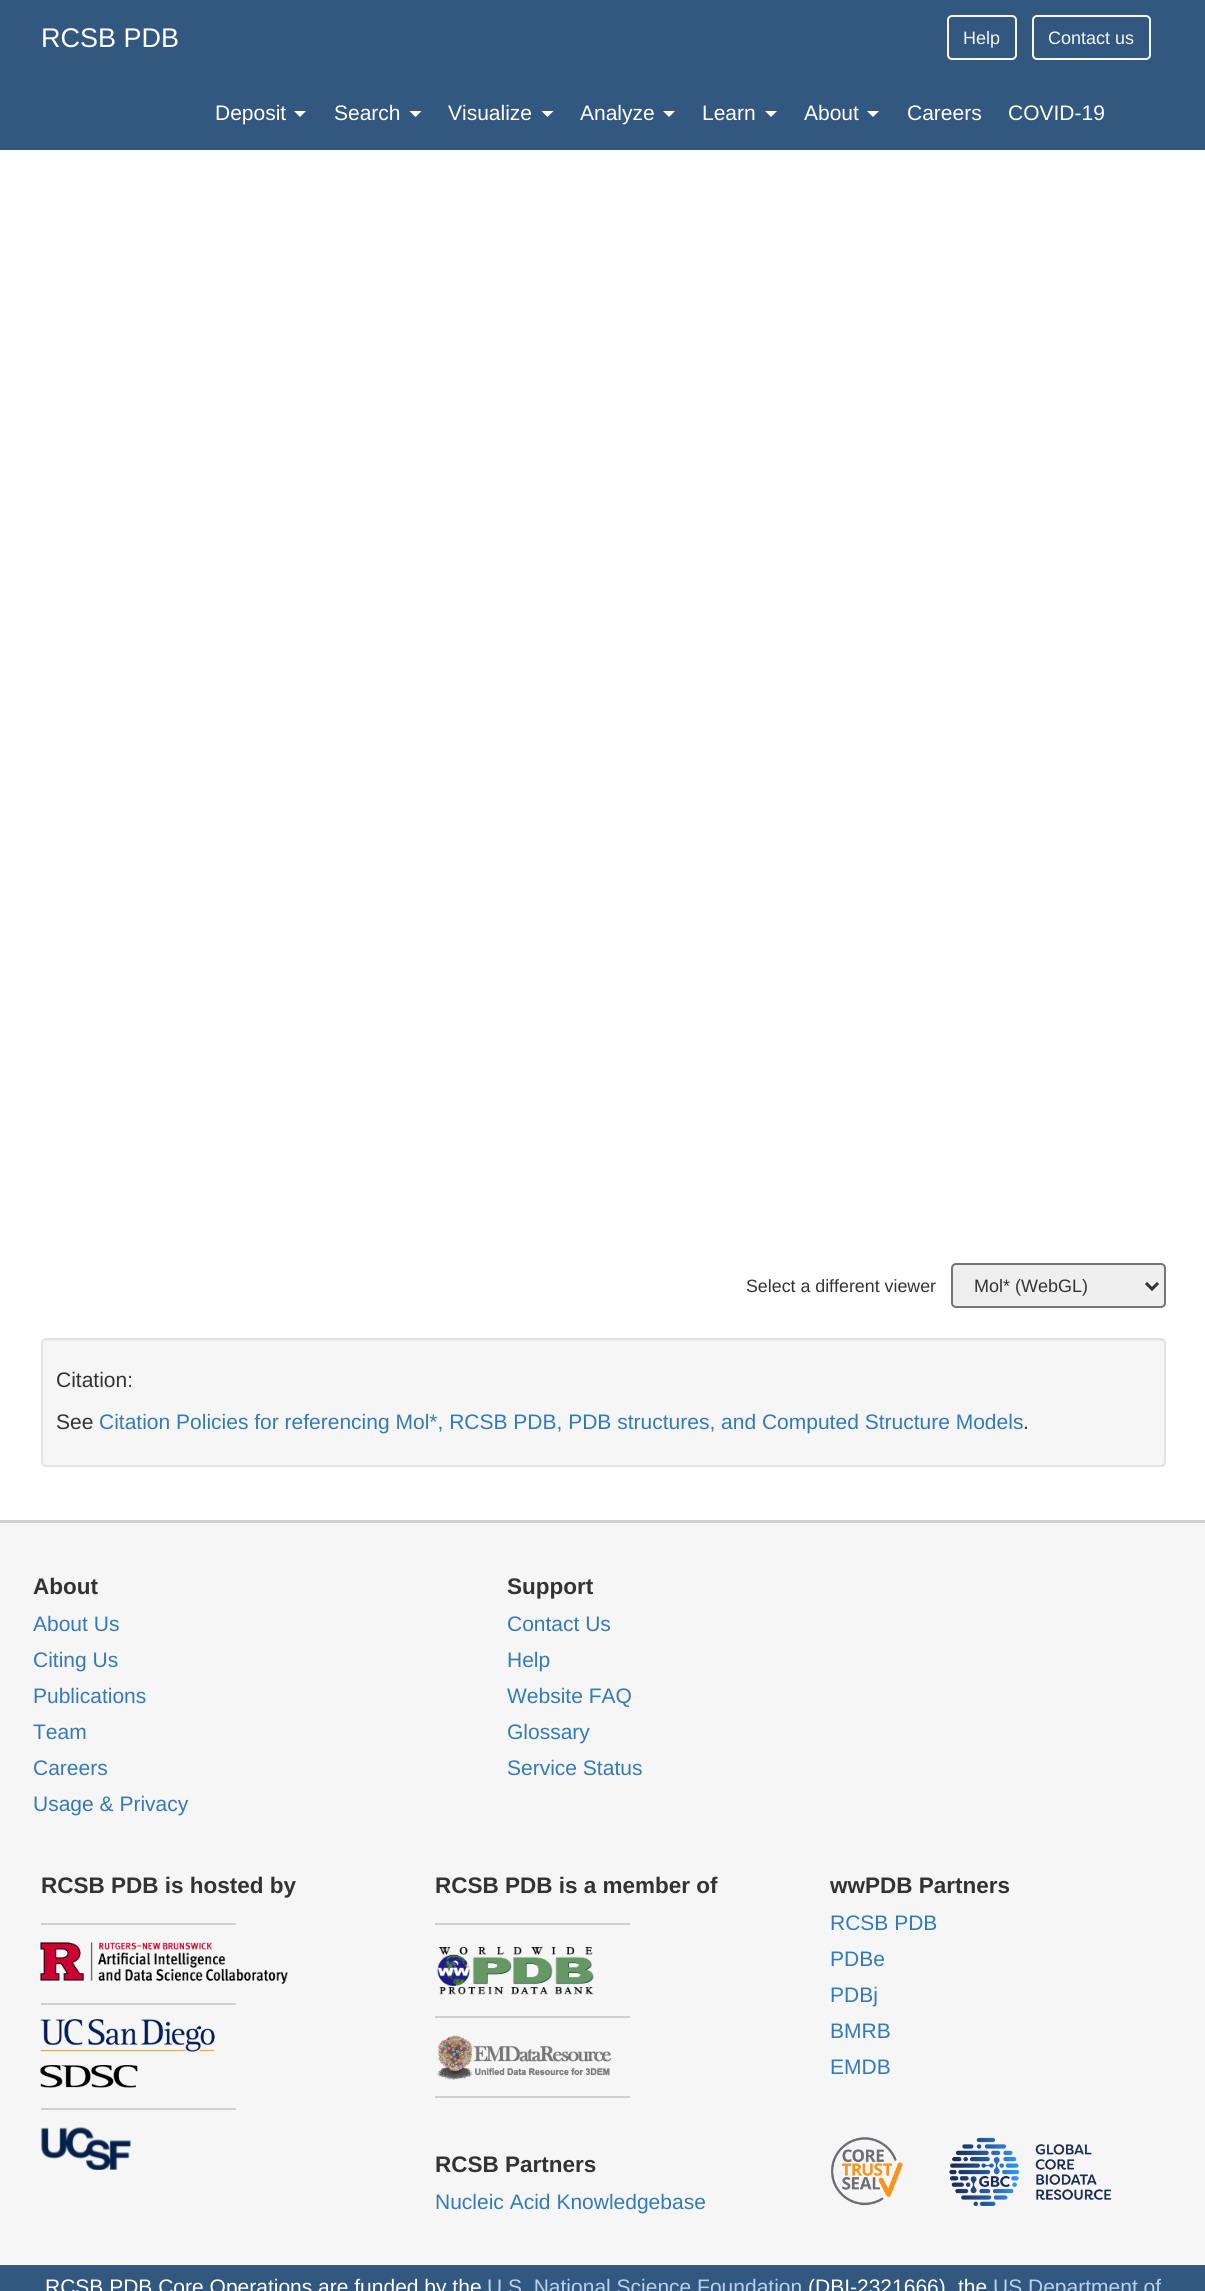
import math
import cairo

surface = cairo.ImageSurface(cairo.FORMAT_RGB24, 1205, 2291)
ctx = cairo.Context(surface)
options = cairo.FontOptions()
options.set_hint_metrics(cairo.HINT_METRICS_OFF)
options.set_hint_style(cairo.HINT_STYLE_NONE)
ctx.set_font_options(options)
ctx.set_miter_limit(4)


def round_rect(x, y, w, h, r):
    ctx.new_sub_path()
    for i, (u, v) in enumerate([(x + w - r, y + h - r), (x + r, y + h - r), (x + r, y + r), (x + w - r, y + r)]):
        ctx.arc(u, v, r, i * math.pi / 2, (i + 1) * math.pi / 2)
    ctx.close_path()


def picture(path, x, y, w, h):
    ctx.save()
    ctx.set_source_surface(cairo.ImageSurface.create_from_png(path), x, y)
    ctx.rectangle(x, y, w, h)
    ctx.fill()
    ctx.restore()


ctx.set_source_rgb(1, 1, 1)
ctx.paint()
ctx.set_source_rgb(0.196, 0.345, 0.502)
ctx.rectangle(0, 0, 1205, 150)
ctx.fill()
ctx.select_font_face("Liberation Sans")
ctx.set_font_size(27)
ctx.set_source_rgb(1, 1, 1)
ctx.move_to(41, 47)
ctx.show_text("RCSB PDB")
round_rect(948, 16, 68, 43, 4)
ctx.set_source_rgb(0.953, 0.961, 0.957)
ctx.stroke()
ctx.set_font_size(18)
ctx.move_to(963, 44)
ctx.show_text("Help")
round_rect(1033, 16, 117, 43, 4)
ctx.stroke()
ctx.move_to(1048, 44)
ctx.show_text("Contact us")
ctx.set_font_size(21)
ctx.set_source_rgb(1, 1, 1)
ctx.move_to(215, 120)
ctx.show_text("Deposit")
ctx.new_path()
ctx.move_to(294, 111)
ctx.line_to(306, 111)
ctx.line_to(300, 117)
ctx.close_path()
ctx.fill()
ctx.move_to(334, 120)
ctx.show_text("Search")
ctx.new_path()
ctx.move_to(409.5, 111)
ctx.line_to(421.5, 111)
ctx.line_to(415.5, 117)
ctx.close_path()
ctx.fill()
ctx.move_to(448, 120)
ctx.show_text("Visualize")
ctx.new_path()
ctx.move_to(541.5, 111)
ctx.line_to(553.5, 111)
ctx.line_to(547.5, 117)
ctx.close_path()
ctx.fill()
ctx.move_to(580, 120)
ctx.show_text("Analyze")
ctx.new_path()
ctx.move_to(663, 111)
ctx.line_to(675, 111)
ctx.line_to(669, 117)
ctx.close_path()
ctx.fill()
ctx.move_to(702, 120)
ctx.show_text("Learn")
ctx.new_path()
ctx.move_to(765, 111)
ctx.line_to(777, 111)
ctx.line_to(771, 117)
ctx.close_path()
ctx.fill()
ctx.move_to(804, 120)
ctx.show_text("About")
ctx.new_path()
ctx.move_to(867, 111)
ctx.line_to(879, 111)
ctx.line_to(873, 117)
ctx.close_path()
ctx.fill()
ctx.move_to(907, 120)
ctx.show_text("Careers")
ctx.move_to(1008, 120)
ctx.show_text("COVID-19")
ctx.set_font_size(17.8)
ctx.set_source_rgb(0.2, 0.2, 0.2)
ctx.move_to(746, 1292)
ctx.show_text("Select a different viewer")
ctx.set_source_rgb(0.937, 0.937, 0.937)
round_rect(952, 1264, 213, 43, 4)
ctx.fill_preserve()
ctx.set_source_rgb(0.463, 0.463, 0.463)
ctx.stroke()
ctx.new_path()
ctx.move_to(1146, 1283)
ctx.line_to(1152, 1289)
ctx.line_to(1158, 1283)
ctx.set_source_rgb(0.2, 0.2, 0.2)
ctx.set_line_width(3)
ctx.stroke()
ctx.set_font_size(18)
ctx.move_to(974, 1292)
ctx.show_text("Mol* (WebGL)")
ctx.set_source_rgb(0.961, 0.961, 0.961)
round_rect(41, 1338, 1125, 129, 5)
ctx.fill()
ctx.set_source_rgb(0.914, 0.914, 0.914)
ctx.new_path()
ctx.move_to(45, 1341)
ctx.line_to(1161, 1341)
ctx.curve_to(1163, 1341, 1164, 1342, 1164, 1344)
ctx.line_to(1164, 1343)
ctx.curve_to(1164, 1341, 1163, 1340, 1161, 1340)
ctx.line_to(45, 1340)
ctx.curve_to(43, 1340, 42, 1341, 42, 1343)
ctx.line_to(42, 1344)
ctx.curve_to(42, 1342, 43, 1341, 45, 1341)
ctx.close_path()
ctx.fill()
round_rect(42, 1339, 1123, 127, 4)
ctx.set_source_rgb(0.89, 0.89, 0.89)
ctx.set_line_width(2)
ctx.stroke()
ctx.set_font_size(21)
ctx.set_source_rgb(0.2, 0.2, 0.2)
ctx.move_to(56, 1387)
ctx.show_text("Citation:")
ctx.move_to(56, 1429)
ctx.show_text("See")
ctx.set_source_rgb(0.2, 0.478, 0.718)
ctx.move_to(99, 1429)
ctx.show_text("Citation Policies for referencing Mol*, RCSB PDB, PDB structures, and Computed Structure Models")
ctx.set_source_rgb(0.2, 0.2, 0.2)
ctx.move_to(1023, 1429)
ctx.show_text(".")
ctx.set_source_rgb(0.961, 0.961, 0.961)
ctx.rectangle(0, 1523, 1205, 742)
ctx.fill()
ctx.set_source_rgb(0.808, 0.816, 0.82)
ctx.rectangle(0, 1520, 1205, 3)
ctx.fill()
ctx.select_font_face("Liberation Sans", cairo.FONT_SLANT_NORMAL, cairo.FONT_WEIGHT_BOLD)
ctx.set_font_size(22.5)
ctx.set_source_rgb(0.2, 0.2, 0.2)
ctx.move_to(33, 1594)
ctx.show_text("About")
ctx.select_font_face("Liberation Sans")
ctx.set_font_size(21)
ctx.set_source_rgb(0.2, 0.478, 0.718)
ctx.move_to(33, 1631)
ctx.show_text("About Us")
ctx.move_to(33, 1667)
ctx.show_text("Citing Us")
ctx.move_to(33, 1703)
ctx.show_text("Publications")
ctx.move_to(33, 1739)
ctx.show_text("Team")
ctx.move_to(33, 1775)
ctx.show_text("Careers")
ctx.move_to(33, 1811)
ctx.show_text("Usage & Privacy")
ctx.select_font_face("Liberation Sans", cairo.FONT_SLANT_NORMAL, cairo.FONT_WEIGHT_BOLD)
ctx.set_font_size(22.5)
ctx.set_source_rgb(0.2, 0.2, 0.2)
ctx.move_to(507, 1594)
ctx.show_text("Support")
ctx.select_font_face("Liberation Sans")
ctx.set_font_size(21)
ctx.set_source_rgb(0.2, 0.478, 0.718)
ctx.move_to(507, 1631)
ctx.show_text("Contact Us")
ctx.move_to(507, 1667)
ctx.show_text("Help")
ctx.move_to(507, 1703)
ctx.show_text("Website FAQ")
ctx.move_to(507, 1739)
ctx.show_text("Glossary")
ctx.move_to(507, 1775)
ctx.show_text("Service Status")
ctx.select_font_face("Liberation Sans", cairo.FONT_SLANT_NORMAL, cairo.FONT_WEIGHT_BOLD)
ctx.set_font_size(22.5)
ctx.set_source_rgb(0.2, 0.2, 0.2)
ctx.move_to(41, 1893)
ctx.show_text("RCSB PDB is hosted by")
ctx.set_source_rgb(0.808, 0.816, 0.82)
ctx.rectangle(41, 1923, 195, 2)
ctx.fill()
picture("img1.png", 40, 1942, 248, 42)
ctx.rectangle(41, 2003, 195, 2)
ctx.fill()
picture("img2.png", 40, 2019, 175, 33)
picture("img3.png", 40, 2065, 98, 23)
ctx.rectangle(41, 2108, 195, 2)
ctx.fill()
picture("img4.png", 41, 2127, 90, 43)
ctx.set_source_rgb(0.2, 0.2, 0.2)
ctx.move_to(435, 1893)
ctx.show_text("RCSB PDB is a member of")
ctx.set_source_rgb(0.808, 0.816, 0.82)
ctx.rectangle(435, 1923, 195, 2)
ctx.fill()
picture("img5.png", 437, 1946, 157, 49)
ctx.rectangle(435, 2016, 195, 2)
ctx.fill()
picture("img6.png", 436, 2035, 176, 45)
ctx.rectangle(435, 2096, 195, 2)
ctx.fill()
ctx.set_source_rgb(0.2, 0.2, 0.2)
ctx.move_to(435, 2172)
ctx.show_text("RCSB Partners")
ctx.select_font_face("Liberation Sans")
ctx.set_font_size(21)
ctx.set_source_rgb(0.2, 0.478, 0.718)
ctx.move_to(435, 2209)
ctx.show_text("Nucleic Acid Knowledgebase")
ctx.select_font_face("Liberation Sans", cairo.FONT_SLANT_NORMAL, cairo.FONT_WEIGHT_BOLD)
ctx.set_font_size(22.5)
ctx.set_source_rgb(0.2, 0.2, 0.2)
ctx.move_to(830, 1893)
ctx.show_text("wwPDB Partners")
ctx.select_font_face("Liberation Sans")
ctx.set_font_size(21)
ctx.set_source_rgb(0.2, 0.478, 0.718)
ctx.move_to(830, 1930)
ctx.show_text("RCSB PDB")
ctx.move_to(830, 1966)
ctx.show_text("PDBe")
ctx.move_to(830, 2002)
ctx.show_text("PDBj")
ctx.move_to(830, 2038)
ctx.show_text("BMRB")
ctx.move_to(830, 2074)
ctx.show_text("EMDB")
picture("img7.png", 831, 2137, 72, 69)
picture("img8.png", 949, 2137, 162, 69)
ctx.set_source_rgb(0.196, 0.345, 0.502)
ctx.rectangle(0, 2265, 1205, 26)
ctx.fill()
ctx.set_source_rgb(1, 1, 1)
ctx.move_to(45, 2294)
ctx.show_text("RCSB PDB Core Operations are funded by the")
ctx.set_source_rgb(0.714, 0.827, 0.933)
ctx.move_to(487, 2294)
ctx.show_text("U.S. National Science Foundation")
ctx.set_source_rgb(1, 1, 1)
ctx.move_to(808, 2294)
ctx.show_text("(DBI-2321666)")
ctx.move_to(958, 2294)
ctx.show_text("the")
ctx.set_source_rgb(0.714, 0.827, 0.933)
ctx.move_to(993, 2294)
ctx.show_text("US Department of")
surface.write_to_png("page.png")
